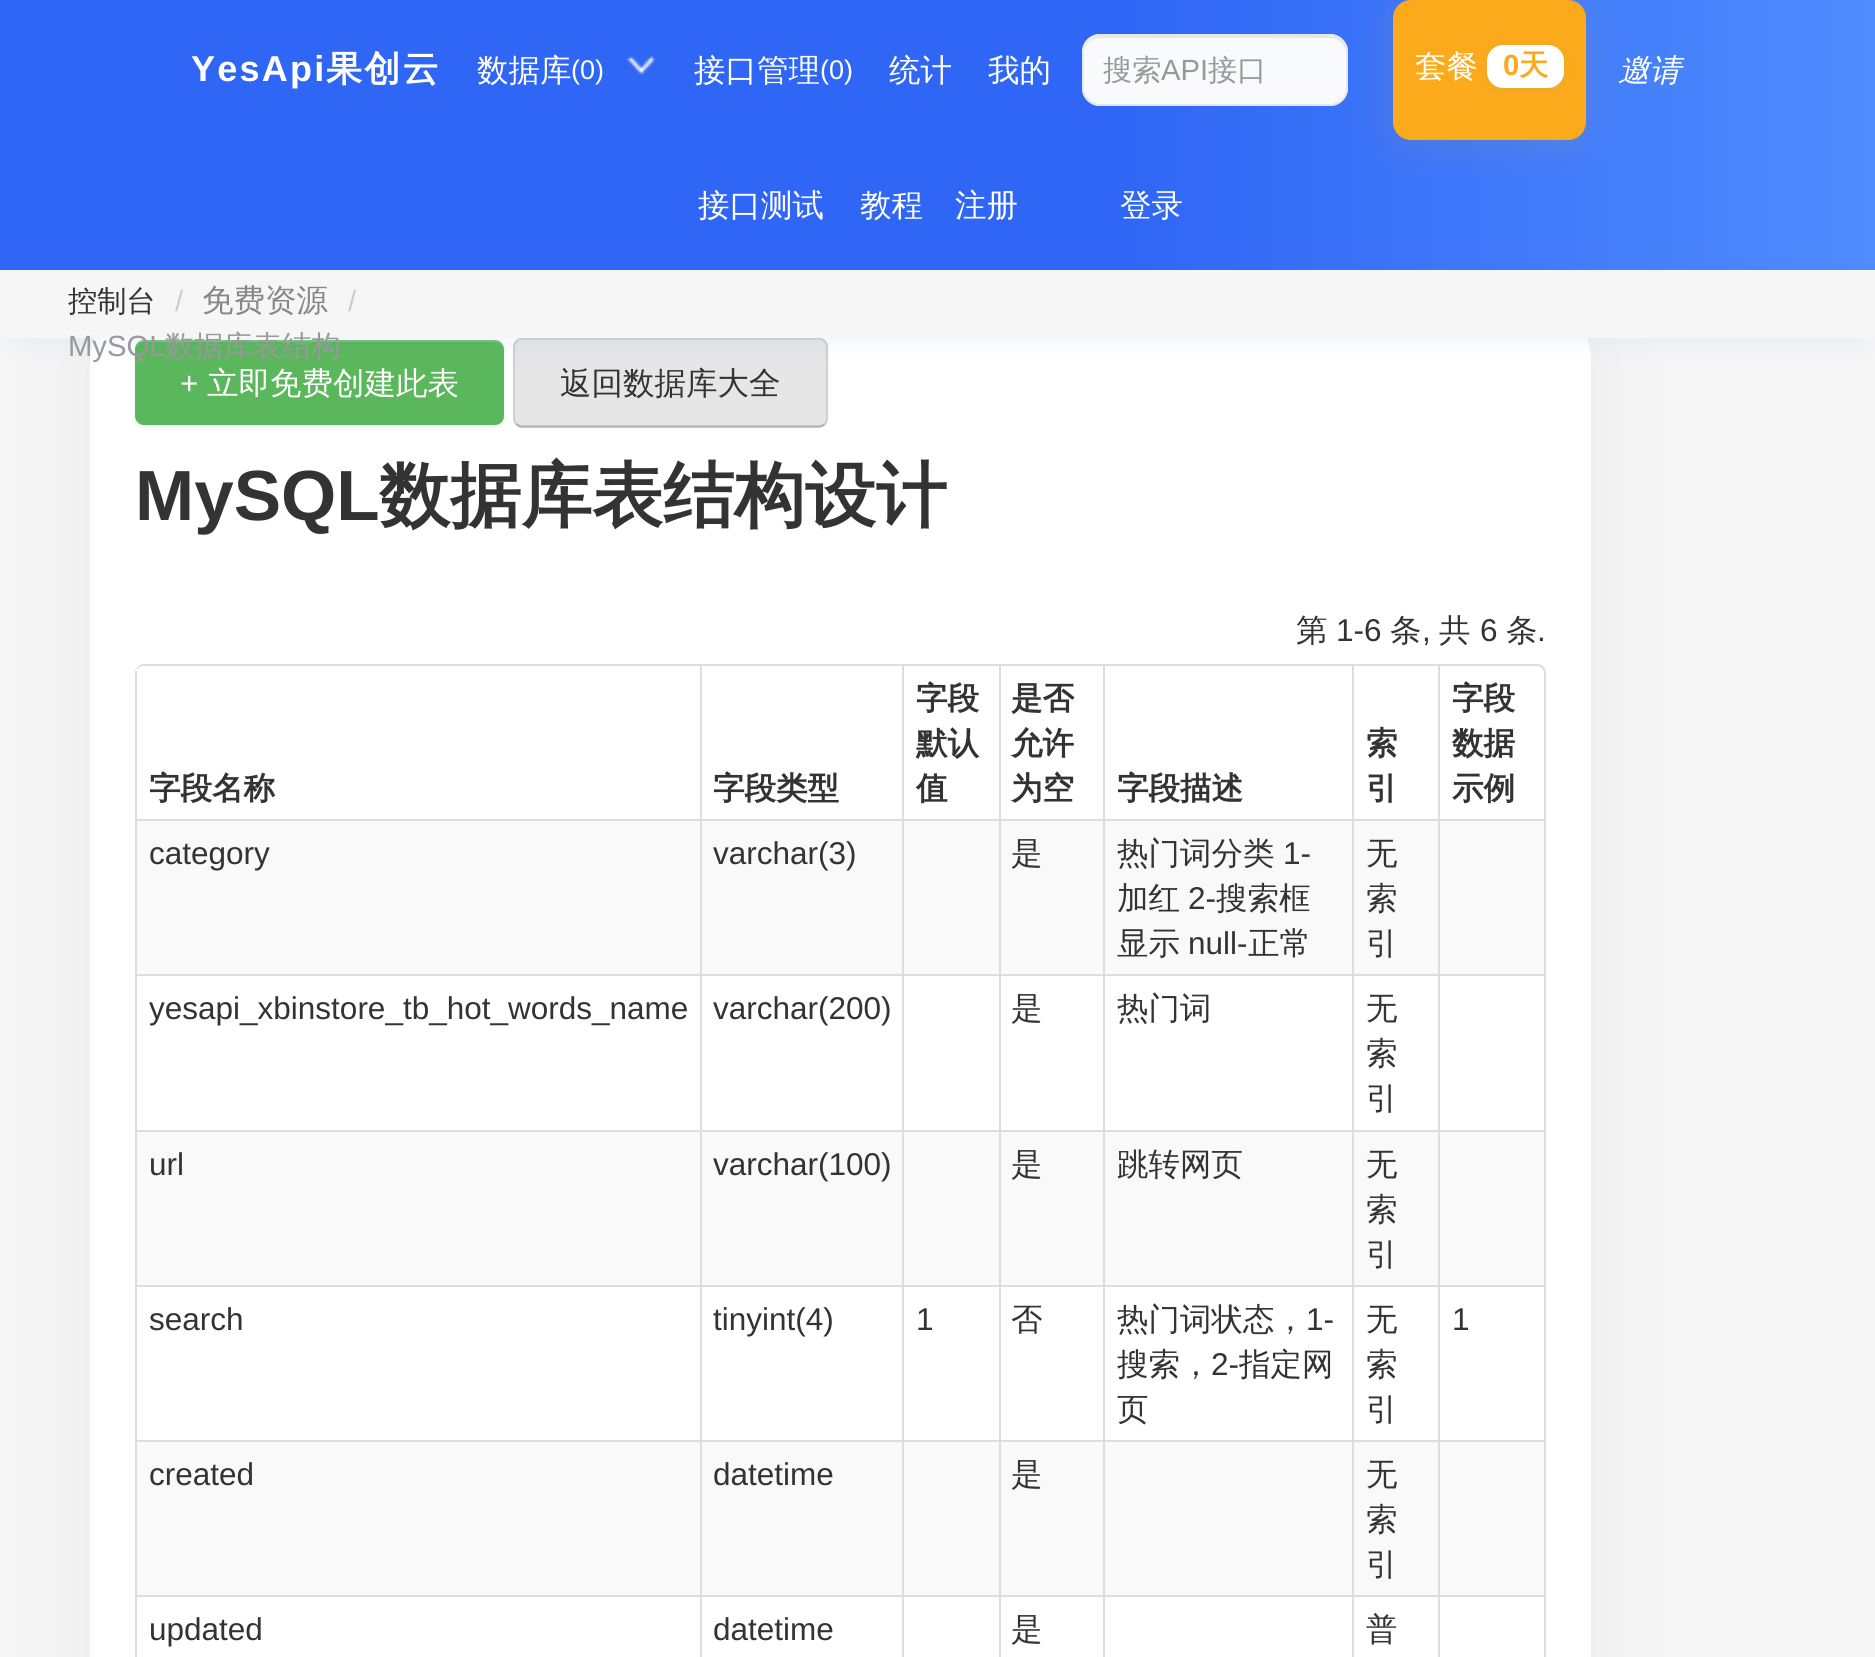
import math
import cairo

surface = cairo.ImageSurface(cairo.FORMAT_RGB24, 1875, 1657)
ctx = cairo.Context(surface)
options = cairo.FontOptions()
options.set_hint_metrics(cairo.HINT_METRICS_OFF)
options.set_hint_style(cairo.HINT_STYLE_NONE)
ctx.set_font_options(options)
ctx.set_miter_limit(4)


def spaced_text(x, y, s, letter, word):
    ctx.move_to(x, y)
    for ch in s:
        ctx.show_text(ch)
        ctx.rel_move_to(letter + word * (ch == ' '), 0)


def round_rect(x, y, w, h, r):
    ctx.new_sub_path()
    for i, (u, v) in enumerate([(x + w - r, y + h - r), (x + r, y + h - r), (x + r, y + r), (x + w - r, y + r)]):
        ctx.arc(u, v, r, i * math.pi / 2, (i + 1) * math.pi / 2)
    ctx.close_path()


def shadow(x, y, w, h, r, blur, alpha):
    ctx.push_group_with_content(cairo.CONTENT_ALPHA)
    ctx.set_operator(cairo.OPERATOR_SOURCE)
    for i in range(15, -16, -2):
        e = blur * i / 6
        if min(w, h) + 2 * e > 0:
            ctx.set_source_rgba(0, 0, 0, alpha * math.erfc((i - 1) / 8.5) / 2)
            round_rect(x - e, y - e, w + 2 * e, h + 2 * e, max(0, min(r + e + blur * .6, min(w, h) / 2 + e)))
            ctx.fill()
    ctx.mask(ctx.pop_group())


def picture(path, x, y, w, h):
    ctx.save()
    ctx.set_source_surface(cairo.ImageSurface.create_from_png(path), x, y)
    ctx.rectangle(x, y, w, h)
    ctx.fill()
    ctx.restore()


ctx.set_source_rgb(0.961, 0.961, 0.961)
ctx.paint()
ctx.set_source_rgb(0.859, 0.859, 0.859)
shadow(90, 297, 1501, 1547, 68, 39.5, 0.5)
ctx.set_source_rgb(1, 1, 1)
round_rect(90, 293, 1501, 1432, 68)
ctx.fill()
ctx.set_source_rgb(0, 0, 0)
shadow(135, 342, 369, 86, 9, 2, 0.05)
ctx.set_source_rgb(0.357, 0.718, 0.357)
round_rect(135, 340, 369, 85, 9)
ctx.fill()
ctx.set_source_rgba(1, 1, 1, 0.2)
ctx.new_path()
ctx.move_to(144, 342)
ctx.line_to(495, 342)
ctx.curve_to(500, 342, 504, 346, 504, 351)
ctx.line_to(504, 349)
ctx.curve_to(504, 344, 500, 340, 495, 340)
ctx.line_to(144, 340)
ctx.curve_to(139, 340, 135, 344, 135, 349)
ctx.line_to(135, 351)
ctx.curve_to(135, 346, 139, 342, 144, 342)
ctx.close_path()
ctx.fill()
ctx.set_source_rgb(0.902, 0.902, 0.902)
round_rect(513, 338, 315, 90, 9)
ctx.fill()
ctx.new_path()
ctx.move_to(824.5, 424)
ctx.curve_to(823, 425.5, 821, 426.5, 819, 426.5)
ctx.line_to(522, 426.5)
ctx.curve_to(520, 426.5, 518, 425.5, 516.5, 424)
ctx.set_source_rgb(0.702, 0.702, 0.702)
ctx.set_line_width(2.2)
ctx.stroke()
ctx.new_path()
ctx.move_to(516.5, 424)
ctx.curve_to(515, 422.5, 514, 420.5, 514, 418.5)
ctx.line_to(514, 346.5)
ctx.curve_to(514, 344.5, 515, 342.5, 516.5, 341)
ctx.curve_to(518, 339.5, 520, 338.5, 522, 338.5)
ctx.line_to(819, 338.5)
ctx.curve_to(821, 338.5, 823, 339.5, 824.5, 341)
ctx.curve_to(826, 342.5, 827, 344.5, 827, 346.5)
ctx.line_to(827, 418.5)
ctx.curve_to(827, 420.5, 826, 422.5, 824.5, 424)
ctx.set_source_rgba(0, 0, 0, 0.1)
ctx.stroke()
ctx.set_source_rgb(0.188, 0.4, 0.961)
shadow(0, 5, 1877, 337, 23, 13.5, 0.08)
gradient = cairo.LinearGradient(0, 169, 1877, 169)
gradient.add_color_stop_rgba(0.6, 0.188, 0.4, 0.961, 1)
gradient.add_color_stop_rgba(1, 0.31, 0.549, 1, 1)
ctx.set_source(gradient)
ctx.rectangle(0, 0, 1875, 270)
ctx.fill()
ctx.select_font_face("Liberation Sans", cairo.FONT_SLANT_NORMAL, cairo.FONT_WEIGHT_BOLD)
ctx.set_font_size(36)
ctx.set_source_rgb(1, 1, 1)
spaced_text(191, 81, "YesApi", 2.25, 0)
ctx.select_font_face("WenQuanYi Zen Hei", cairo.FONT_SLANT_NORMAL, cairo.FONT_WEIGHT_BOLD)
spaced_text(326, 81, "果创云", 2.25, 0)
ctx.select_font_face("WenQuanYi Zen Hei Medium")
ctx.set_font_size(31.5)
ctx.move_to(477, 81)
ctx.show_text("数据库")
ctx.select_font_face("Liberation Sans")
ctx.set_font_size(27)
ctx.move_to(571, 79)
ctx.show_text("(0)")
picture("img1.png", 627, 55, 28, 20)
ctx.select_font_face("WenQuanYi Zen Hei Medium")
ctx.set_font_size(31.5)
ctx.move_to(694, 81)
ctx.show_text("接口管理")
ctx.select_font_face("Liberation Sans")
ctx.set_font_size(27)
ctx.move_to(820, 79)
ctx.show_text("(0)")
ctx.select_font_face("WenQuanYi Zen Hei Medium")
ctx.set_font_size(31.5)
ctx.move_to(889, 81)
ctx.show_text("统计")
ctx.move_to(988, 81)
ctx.show_text("我的")
ctx.set_source_rgb(0.976, 0.98, 0.984)
round_rect(1082, 34, 266, 72, 18)
ctx.fill()
ctx.set_source_rgb(0.902, 0.906, 0.91)
ctx.new_path()
ctx.move_to(1100, 38)
ctx.line_to(1330, 38)
ctx.curve_to(1338, 38, 1346, 45, 1346, 54)
ctx.line_to(1346, 52)
ctx.curve_to(1346, 43, 1339, 36, 1330, 36)
ctx.line_to(1101, 36)
ctx.curve_to(1094, 36, 1088, 40, 1086, 47)
ctx.curve_to(1089, 41, 1094, 38, 1100, 38)
ctx.close_path()
ctx.fill()
round_rect(1083, 35, 264, 70, 17)
ctx.set_source_rgb(0.894, 0.906, 0.929)
ctx.set_line_width(2)
ctx.stroke()
ctx.set_font_size(29.25)
ctx.set_source_rgb(0.6, 0.6, 0.6)
ctx.move_to(1103, 80)
ctx.show_text("搜索")
ctx.select_font_face("Liberation Sans")
ctx.move_to(1161, 80)
ctx.show_text("API")
ctx.select_font_face("WenQuanYi Zen Hei Medium")
ctx.move_to(1208, 80)
ctx.show_text("接口")
ctx.set_source_rgb(0.984, 0.667, 0.106)
shadow(1393, 5, 193, 139, 18, 18, 0.12)
ctx.set_source_rgb(0.984, 0.667, 0.106)
round_rect(1393, 0, 193, 140, 18)
ctx.fill()
ctx.set_font_size(31.5)
ctx.set_source_rgb(1, 1, 1)
ctx.move_to(1415, 77)
ctx.show_text("套餐")
ctx.set_source_rgb(0.188, 0.4, 0.961)
shadow(1487, 47, 77, 43, 16, 4.5, 0.08)
ctx.set_source_rgb(1, 1, 1)
round_rect(1487, 45, 77, 43, 16)
ctx.fill()
ctx.select_font_face("Liberation Sans", cairo.FONT_SLANT_NORMAL, cairo.FONT_WEIGHT_BOLD)
ctx.set_font_size(29.25)
ctx.set_source_rgb(0.984, 0.667, 0.106)
ctx.move_to(1503, 75)
ctx.show_text("0")
ctx.select_font_face("WenQuanYi Zen Hei", cairo.FONT_SLANT_NORMAL, cairo.FONT_WEIGHT_BOLD)
ctx.move_to(1519, 75)
ctx.show_text("天")
ctx.select_font_face("WenQuanYi Zen Hei Medium", cairo.FONT_SLANT_ITALIC)
ctx.set_font_size(31.5)
ctx.set_source_rgb(1, 1, 1)
ctx.move_to(1618, 81)
ctx.show_text("邀请")
ctx.select_font_face("WenQuanYi Zen Hei Medium")
ctx.move_to(698, 216)
ctx.show_text("接口测试")
ctx.move_to(860, 216)
ctx.show_text("教程")
ctx.move_to(955, 216)
ctx.show_text("注册")
ctx.move_to(1120, 216)
ctx.show_text("登录")
ctx.set_source_rgb(0.961, 0.961, 0.961)
ctx.rectangle(0, 270, 1875, 68)
ctx.fill()
ctx.set_font_size(29.25)
ctx.set_source_rgb(0.2, 0.2, 0.2)
ctx.move_to(68, 311)
ctx.show_text("控制台")
ctx.select_font_face("Liberation Sans")
ctx.set_source_rgb(0.8, 0.8, 0.8)
ctx.move_to(175, 311)
ctx.show_text("/")
ctx.select_font_face("WenQuanYi Zen Hei Medium")
ctx.set_font_size(31.5)
ctx.set_source_rgb(0.529, 0.529, 0.529)
ctx.move_to(202, 311)
ctx.show_text("免费资源")
ctx.select_font_face("Liberation Sans")
ctx.set_font_size(29.25)
ctx.set_source_rgb(0.8, 0.8, 0.8)
ctx.move_to(348, 311)
ctx.show_text("/")
ctx.set_source_rgb(0.6, 0.6, 0.6)
ctx.move_to(68, 356)
ctx.show_text("MySQL")
ctx.select_font_face("WenQuanYi Zen Hei Medium")
ctx.move_to(165, 356)
ctx.show_text("数据库表结构")
ctx.select_font_face("Liberation Sans")
ctx.set_font_size(31.5)
ctx.set_source_rgb(1, 1, 1)
ctx.move_to(180, 394)
ctx.show_text("+")
ctx.select_font_face("WenQuanYi Zen Hei Medium")
ctx.move_to(207, 394)
ctx.show_text("立即免费创建此表")
ctx.set_source_rgb(0.2, 0.2, 0.2)
ctx.move_to(560, 394)
ctx.show_text("返回数据库大全")
ctx.select_font_face("Liberation Sans", cairo.FONT_SLANT_NORMAL, cairo.FONT_WEIGHT_BOLD)
ctx.set_font_size(71)
ctx.move_to(135, 520)
ctx.show_text("MySQL")
ctx.select_font_face("WenQuanYi Zen Hei", cairo.FONT_SLANT_NORMAL, cairo.FONT_WEIGHT_BOLD)
ctx.move_to(379, 520)
ctx.show_text("数据库表结构设计")
ctx.select_font_face("WenQuanYi Zen Hei Medium")
ctx.set_font_size(31.5)
ctx.move_to(1296, 641)
ctx.show_text("第")
ctx.select_font_face("Liberation Sans")
ctx.move_to(1336, 641)
ctx.show_text("1-6")
ctx.select_font_face("WenQuanYi Zen Hei Medium")
ctx.move_to(1390, 641)
ctx.show_text("条")
ctx.select_font_face("Liberation Sans")
ctx.move_to(1422, 641)
ctx.show_text(",")
ctx.select_font_face("WenQuanYi Zen Hei Medium")
ctx.move_to(1439, 641)
ctx.show_text("共")
ctx.select_font_face("Liberation Sans")
ctx.move_to(1480, 641)
ctx.show_text("6")
ctx.select_font_face("WenQuanYi Zen Hei Medium")
ctx.move_to(1506, 641)
ctx.show_text("条")
ctx.select_font_face("Liberation Sans")
ctx.move_to(1537, 641)
ctx.show_text(".")
ctx.set_source_rgb(0.867, 0.867, 0.867)
ctx.set_fill_rule(cairo.FILL_RULE_EVEN_ODD)
ctx.new_path()
ctx.move_to(144, 664)
ctx.line_to(1537, 664)
ctx.curve_to(1542, 664, 1546, 668, 1546, 673)
ctx.line_to(1546, 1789)
ctx.curve_to(1546, 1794, 1542, 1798, 1537, 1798)
ctx.line_to(144, 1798)
ctx.curve_to(139, 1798, 135, 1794, 135, 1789)
ctx.line_to(135, 673)
ctx.curve_to(135, 668, 139, 664, 144, 664)
ctx.close_path()
ctx.move_to(144, 666)
ctx.line_to(1537, 666)
ctx.curve_to(1540, 666, 1544, 669, 1544, 673)
ctx.line_to(1544, 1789)
ctx.curve_to(1544, 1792, 1540, 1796, 1537, 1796)
ctx.line_to(144, 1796)
ctx.curve_to(139, 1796, 135, 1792, 135, 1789)
ctx.line_to(135, 673)
ctx.curve_to(135, 669, 139, 666, 144, 666)
ctx.close_path()
ctx.fill()
ctx.rectangle(135, 671, 2, 148)
ctx.fill()
ctx.select_font_face("WenQuanYi Zen Hei", cairo.FONT_SLANT_NORMAL, cairo.FONT_WEIGHT_BOLD)
ctx.set_source_rgb(0.2, 0.2, 0.2)
ctx.move_to(149, 799)
ctx.show_text("字段名称")
ctx.set_source_rgb(0.867, 0.867, 0.867)
ctx.rectangle(700, 666, 2, 153)
ctx.fill()
ctx.set_source_rgb(0.2, 0.2, 0.2)
ctx.move_to(713, 799)
ctx.show_text("字段类型")
ctx.set_source_rgb(0.867, 0.867, 0.867)
ctx.rectangle(902, 666, 2, 153)
ctx.fill()
ctx.set_source_rgb(0.2, 0.2, 0.2)
ctx.move_to(916, 709)
ctx.show_text("字段")
ctx.move_to(916, 754)
ctx.show_text("默认")
ctx.move_to(916, 799)
ctx.show_text("值")
ctx.set_source_rgb(0.867, 0.867, 0.867)
ctx.rectangle(999, 666, 2, 153)
ctx.fill()
ctx.set_source_rgb(0.2, 0.2, 0.2)
ctx.move_to(1011, 709)
ctx.show_text("是否")
ctx.move_to(1011, 754)
ctx.show_text("允许")
ctx.move_to(1011, 799)
ctx.show_text("为空")
ctx.set_source_rgb(0.867, 0.867, 0.867)
ctx.rectangle(1103, 666, 2, 153)
ctx.fill()
ctx.set_source_rgb(0.2, 0.2, 0.2)
ctx.move_to(1117, 799)
ctx.show_text("字段描述")
ctx.set_source_rgb(0.867, 0.867, 0.867)
ctx.rectangle(1352, 666, 2, 153)
ctx.fill()
ctx.set_source_rgb(0.2, 0.2, 0.2)
ctx.move_to(1366, 754)
ctx.show_text("索")
ctx.move_to(1366, 799)
ctx.show_text("引")
ctx.set_source_rgb(0.867, 0.867, 0.867)
ctx.rectangle(1438, 666, 2, 153)
ctx.fill()
ctx.set_source_rgb(0.2, 0.2, 0.2)
ctx.move_to(1452, 709)
ctx.show_text("字段")
ctx.move_to(1452, 754)
ctx.show_text("数据")
ctx.move_to(1452, 799)
ctx.show_text("示例")
ctx.set_source_rgb(0.976, 0.976, 0.976)
ctx.rectangle(137, 821, 563, 153)
ctx.fill()
ctx.set_source_rgb(0.867, 0.867, 0.867)
ctx.rectangle(135, 819, 1409, 2)
ctx.fill()
ctx.rectangle(135, 819, 2, 155)
ctx.fill()
ctx.select_font_face("Liberation Sans")
ctx.set_source_rgb(0.2, 0.2, 0.2)
ctx.move_to(149, 864)
ctx.show_text("category")
ctx.set_source_rgb(0.976, 0.976, 0.976)
ctx.rectangle(702, 821, 200, 153)
ctx.fill()
ctx.set_source_rgb(0.867, 0.867, 0.867)
ctx.rectangle(700, 819, 2, 155)
ctx.fill()
ctx.set_source_rgb(0.2, 0.2, 0.2)
ctx.move_to(713, 864)
ctx.show_text("varchar(3)")
ctx.set_source_rgb(0.976, 0.976, 0.976)
ctx.rectangle(904, 821, 95, 153)
ctx.fill()
ctx.set_source_rgb(0.867, 0.867, 0.867)
ctx.rectangle(902, 819, 2, 155)
ctx.fill()
ctx.set_source_rgb(0.976, 0.976, 0.976)
ctx.rectangle(1001, 821, 102, 153)
ctx.fill()
ctx.set_source_rgb(0.867, 0.867, 0.867)
ctx.rectangle(999, 819, 2, 155)
ctx.fill()
ctx.select_font_face("WenQuanYi Zen Hei Medium")
ctx.set_source_rgb(0.2, 0.2, 0.2)
ctx.move_to(1011, 864)
ctx.show_text("是")
ctx.set_source_rgb(0.976, 0.976, 0.976)
ctx.rectangle(1105, 821, 247, 153)
ctx.fill()
ctx.set_source_rgb(0.867, 0.867, 0.867)
ctx.rectangle(1103, 819, 2, 155)
ctx.fill()
ctx.set_source_rgb(0.2, 0.2, 0.2)
ctx.move_to(1117, 864)
ctx.show_text("热门词分类")
ctx.select_font_face("Liberation Sans")
ctx.move_to(1283, 864)
ctx.show_text("1-")
ctx.select_font_face("WenQuanYi Zen Hei Medium")
ctx.move_to(1117, 909)
ctx.show_text("加红")
ctx.select_font_face("Liberation Sans")
ctx.move_to(1188, 909)
ctx.show_text("2-")
ctx.select_font_face("WenQuanYi Zen Hei Medium")
ctx.move_to(1216, 909)
ctx.show_text("搜索框")
ctx.move_to(1117, 954)
ctx.show_text("显示")
ctx.select_font_face("Liberation Sans")
ctx.move_to(1188, 954)
ctx.show_text("null-")
ctx.select_font_face("WenQuanYi Zen Hei Medium")
ctx.move_to(1248, 954)
ctx.show_text("正常")
ctx.set_source_rgb(0.976, 0.976, 0.976)
ctx.rectangle(1354, 821, 84, 153)
ctx.fill()
ctx.set_source_rgb(0.867, 0.867, 0.867)
ctx.rectangle(1352, 819, 2, 155)
ctx.fill()
ctx.set_source_rgb(0.2, 0.2, 0.2)
ctx.move_to(1366, 864)
ctx.show_text("无")
ctx.move_to(1366, 909)
ctx.show_text("索")
ctx.move_to(1366, 954)
ctx.show_text("引")
ctx.set_source_rgb(0.976, 0.976, 0.976)
ctx.rectangle(1440, 821, 104, 153)
ctx.fill()
ctx.set_source_rgb(0.867, 0.867, 0.867)
ctx.rectangle(1438, 819, 2, 155)
ctx.fill()
ctx.rectangle(135, 974, 1409, 2)
ctx.fill()
ctx.rectangle(135, 974, 2, 156)
ctx.fill()
ctx.select_font_face("Liberation Sans")
ctx.set_source_rgb(0.2, 0.2, 0.2)
ctx.move_to(149, 1019)
ctx.show_text("yesapi_xbinstore_tb_hot_words_name")
ctx.set_source_rgb(0.867, 0.867, 0.867)
ctx.rectangle(700, 974, 2, 156)
ctx.fill()
ctx.set_source_rgb(0.2, 0.2, 0.2)
ctx.move_to(713, 1019)
ctx.show_text("varchar(200)")
ctx.set_source_rgb(0.867, 0.867, 0.867)
ctx.rectangle(902, 974, 2, 156)
ctx.fill()
ctx.rectangle(999, 974, 2, 156)
ctx.fill()
ctx.select_font_face("WenQuanYi Zen Hei Medium")
ctx.set_source_rgb(0.2, 0.2, 0.2)
ctx.move_to(1011, 1019)
ctx.show_text("是")
ctx.set_source_rgb(0.867, 0.867, 0.867)
ctx.rectangle(1103, 974, 2, 156)
ctx.fill()
ctx.set_source_rgb(0.2, 0.2, 0.2)
ctx.move_to(1117, 1019)
ctx.show_text("热门词")
ctx.set_source_rgb(0.867, 0.867, 0.867)
ctx.rectangle(1352, 974, 2, 156)
ctx.fill()
ctx.set_source_rgb(0.2, 0.2, 0.2)
ctx.move_to(1366, 1019)
ctx.show_text("无")
ctx.move_to(1366, 1064)
ctx.show_text("索")
ctx.move_to(1366, 1109)
ctx.show_text("引")
ctx.set_source_rgb(0.867, 0.867, 0.867)
ctx.rectangle(1438, 974, 2, 156)
ctx.fill()
ctx.set_source_rgb(0.976, 0.976, 0.976)
ctx.rectangle(137, 1132, 563, 153)
ctx.fill()
ctx.set_source_rgb(0.867, 0.867, 0.867)
ctx.rectangle(135, 1130, 1409, 2)
ctx.fill()
ctx.rectangle(135, 1130, 2, 155)
ctx.fill()
ctx.select_font_face("Liberation Sans")
ctx.set_source_rgb(0.2, 0.2, 0.2)
ctx.move_to(149, 1175)
ctx.show_text("url")
ctx.set_source_rgb(0.976, 0.976, 0.976)
ctx.rectangle(702, 1132, 200, 153)
ctx.fill()
ctx.set_source_rgb(0.867, 0.867, 0.867)
ctx.rectangle(700, 1130, 2, 155)
ctx.fill()
ctx.set_source_rgb(0.2, 0.2, 0.2)
ctx.move_to(713, 1175)
ctx.show_text("varchar(100)")
ctx.set_source_rgb(0.976, 0.976, 0.976)
ctx.rectangle(904, 1132, 95, 153)
ctx.fill()
ctx.set_source_rgb(0.867, 0.867, 0.867)
ctx.rectangle(902, 1130, 2, 155)
ctx.fill()
ctx.set_source_rgb(0.976, 0.976, 0.976)
ctx.rectangle(1001, 1132, 102, 153)
ctx.fill()
ctx.set_source_rgb(0.867, 0.867, 0.867)
ctx.rectangle(999, 1130, 2, 155)
ctx.fill()
ctx.select_font_face("WenQuanYi Zen Hei Medium")
ctx.set_source_rgb(0.2, 0.2, 0.2)
ctx.move_to(1011, 1175)
ctx.show_text("是")
ctx.set_source_rgb(0.976, 0.976, 0.976)
ctx.rectangle(1105, 1132, 247, 153)
ctx.fill()
ctx.set_source_rgb(0.867, 0.867, 0.867)
ctx.rectangle(1103, 1130, 2, 155)
ctx.fill()
ctx.set_source_rgb(0.2, 0.2, 0.2)
ctx.move_to(1117, 1175)
ctx.show_text("跳转网页")
ctx.set_source_rgb(0.976, 0.976, 0.976)
ctx.rectangle(1354, 1132, 84, 153)
ctx.fill()
ctx.set_source_rgb(0.867, 0.867, 0.867)
ctx.rectangle(1352, 1130, 2, 155)
ctx.fill()
ctx.set_source_rgb(0.2, 0.2, 0.2)
ctx.move_to(1366, 1175)
ctx.show_text("无")
ctx.move_to(1366, 1220)
ctx.show_text("索")
ctx.move_to(1366, 1265)
ctx.show_text("引")
ctx.set_source_rgb(0.976, 0.976, 0.976)
ctx.rectangle(1440, 1132, 104, 153)
ctx.fill()
ctx.set_source_rgb(0.867, 0.867, 0.867)
ctx.rectangle(1438, 1130, 2, 155)
ctx.fill()
ctx.rectangle(135, 1285, 1409, 2)
ctx.fill()
ctx.rectangle(135, 1285, 2, 155)
ctx.fill()
ctx.select_font_face("Liberation Sans")
ctx.set_source_rgb(0.2, 0.2, 0.2)
ctx.move_to(149, 1330)
ctx.show_text("search")
ctx.set_source_rgb(0.867, 0.867, 0.867)
ctx.rectangle(700, 1285, 2, 155)
ctx.fill()
ctx.set_source_rgb(0.2, 0.2, 0.2)
ctx.move_to(713, 1330)
ctx.show_text("tinyint(4)")
ctx.set_source_rgb(0.867, 0.867, 0.867)
ctx.rectangle(902, 1285, 2, 155)
ctx.fill()
ctx.set_source_rgb(0.2, 0.2, 0.2)
ctx.move_to(916, 1330)
ctx.show_text("1")
ctx.set_source_rgb(0.867, 0.867, 0.867)
ctx.rectangle(999, 1285, 2, 155)
ctx.fill()
ctx.select_font_face("WenQuanYi Zen Hei Medium")
ctx.set_source_rgb(0.2, 0.2, 0.2)
ctx.move_to(1011, 1330)
ctx.show_text("否")
ctx.set_source_rgb(0.867, 0.867, 0.867)
ctx.rectangle(1103, 1285, 2, 155)
ctx.fill()
ctx.set_source_rgb(0.2, 0.2, 0.2)
ctx.move_to(1117, 1330)
ctx.show_text("热门词状态，")
ctx.select_font_face("Liberation Sans")
ctx.move_to(1306, 1330)
ctx.show_text("1-")
ctx.select_font_face("WenQuanYi Zen Hei Medium")
ctx.move_to(1117, 1375)
ctx.show_text("搜索，")
ctx.select_font_face("Liberation Sans")
ctx.move_to(1211, 1375)
ctx.show_text("2-")
ctx.select_font_face("WenQuanYi Zen Hei Medium")
ctx.move_to(1239, 1375)
ctx.show_text("指定网")
ctx.move_to(1117, 1420)
ctx.show_text("页")
ctx.set_source_rgb(0.867, 0.867, 0.867)
ctx.rectangle(1352, 1285, 2, 155)
ctx.fill()
ctx.set_source_rgb(0.2, 0.2, 0.2)
ctx.move_to(1366, 1330)
ctx.show_text("无")
ctx.move_to(1366, 1375)
ctx.show_text("索")
ctx.move_to(1366, 1420)
ctx.show_text("引")
ctx.set_source_rgb(0.867, 0.867, 0.867)
ctx.rectangle(1438, 1285, 2, 155)
ctx.fill()
ctx.select_font_face("Liberation Sans")
ctx.set_source_rgb(0.2, 0.2, 0.2)
ctx.move_to(1452, 1330)
ctx.show_text("1")
ctx.set_source_rgb(0.976, 0.976, 0.976)
ctx.rectangle(137, 1442, 563, 153)
ctx.fill()
ctx.set_source_rgb(0.867, 0.867, 0.867)
ctx.rectangle(135, 1440, 1409, 2)
ctx.fill()
ctx.rectangle(135, 1440, 2, 155)
ctx.fill()
ctx.set_source_rgb(0.2, 0.2, 0.2)
ctx.move_to(149, 1485)
ctx.show_text("created")
ctx.set_source_rgb(0.976, 0.976, 0.976)
ctx.rectangle(702, 1442, 200, 153)
ctx.fill()
ctx.set_source_rgb(0.867, 0.867, 0.867)
ctx.rectangle(700, 1440, 2, 155)
ctx.fill()
ctx.set_source_rgb(0.2, 0.2, 0.2)
ctx.move_to(713, 1485)
ctx.show_text("datetime")
ctx.set_source_rgb(0.976, 0.976, 0.976)
ctx.rectangle(904, 1442, 95, 153)
ctx.fill()
ctx.set_source_rgb(0.867, 0.867, 0.867)
ctx.rectangle(902, 1440, 2, 155)
ctx.fill()
ctx.set_source_rgb(0.976, 0.976, 0.976)
ctx.rectangle(1001, 1442, 102, 153)
ctx.fill()
ctx.set_source_rgb(0.867, 0.867, 0.867)
ctx.rectangle(999, 1440, 2, 155)
ctx.fill()
ctx.select_font_face("WenQuanYi Zen Hei Medium")
ctx.set_source_rgb(0.2, 0.2, 0.2)
ctx.move_to(1011, 1485)
ctx.show_text("是")
ctx.set_source_rgb(0.976, 0.976, 0.976)
ctx.rectangle(1105, 1442, 247, 153)
ctx.fill()
ctx.set_source_rgb(0.867, 0.867, 0.867)
ctx.rectangle(1103, 1440, 2, 155)
ctx.fill()
ctx.set_source_rgb(0.976, 0.976, 0.976)
ctx.rectangle(1354, 1442, 84, 153)
ctx.fill()
ctx.set_source_rgb(0.867, 0.867, 0.867)
ctx.rectangle(1352, 1440, 2, 155)
ctx.fill()
ctx.set_source_rgb(0.2, 0.2, 0.2)
ctx.move_to(1366, 1485)
ctx.show_text("无")
ctx.move_to(1366, 1530)
ctx.show_text("索")
ctx.move_to(1366, 1575)
ctx.show_text("引")
ctx.set_source_rgb(0.976, 0.976, 0.976)
ctx.rectangle(1440, 1442, 104, 153)
ctx.fill()
ctx.set_source_rgb(0.867, 0.867, 0.867)
ctx.rectangle(1438, 1440, 2, 155)
ctx.fill()
ctx.rectangle(135, 1595, 1409, 2)
ctx.fill()
ctx.rectangle(135, 1595, 2, 62)
ctx.fill()
ctx.select_font_face("Liberation Sans")
ctx.set_source_rgb(0.2, 0.2, 0.2)
ctx.move_to(149, 1640)
ctx.show_text("updated")
ctx.set_source_rgb(0.867, 0.867, 0.867)
ctx.rectangle(700, 1595, 2, 62)
ctx.fill()
ctx.set_source_rgb(0.2, 0.2, 0.2)
ctx.move_to(713, 1640)
ctx.show_text("datetime")
ctx.set_source_rgb(0.867, 0.867, 0.867)
ctx.rectangle(902, 1595, 2, 62)
ctx.fill()
ctx.rectangle(999, 1595, 2, 62)
ctx.fill()
ctx.select_font_face("WenQuanYi Zen Hei Medium")
ctx.set_source_rgb(0.2, 0.2, 0.2)
ctx.move_to(1011, 1640)
ctx.show_text("是")
ctx.set_source_rgb(0.867, 0.867, 0.867)
ctx.rectangle(1103, 1595, 2, 62)
ctx.fill()
ctx.rectangle(1352, 1595, 2, 62)
ctx.fill()
ctx.set_source_rgb(0.2, 0.2, 0.2)
ctx.move_to(1366, 1640)
ctx.show_text("普")
ctx.set_source_rgb(0.867, 0.867, 0.867)
ctx.rectangle(1438, 1595, 2, 62)
ctx.fill()
surface.write_to_png("page.png")
